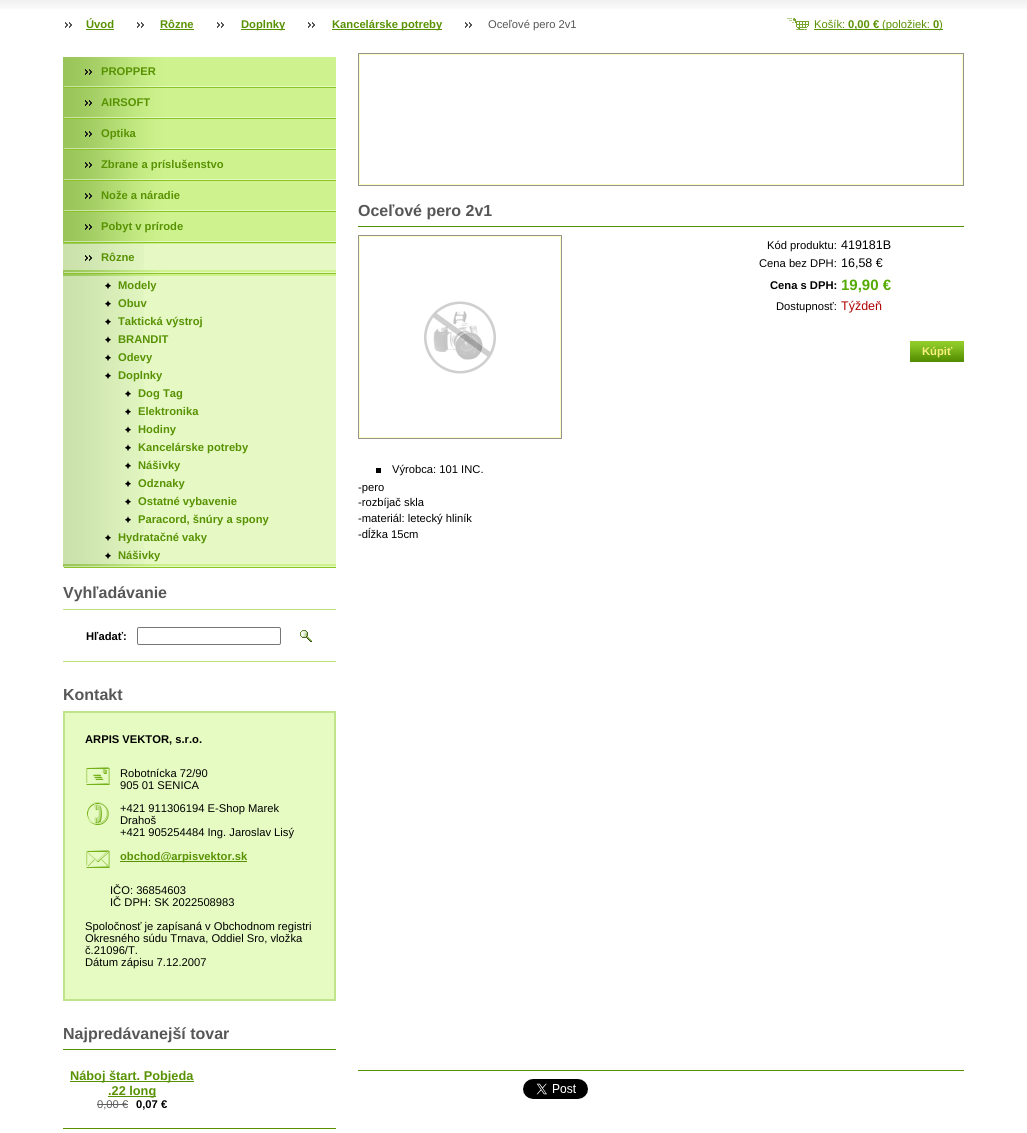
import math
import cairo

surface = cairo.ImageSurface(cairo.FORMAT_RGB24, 1027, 1133)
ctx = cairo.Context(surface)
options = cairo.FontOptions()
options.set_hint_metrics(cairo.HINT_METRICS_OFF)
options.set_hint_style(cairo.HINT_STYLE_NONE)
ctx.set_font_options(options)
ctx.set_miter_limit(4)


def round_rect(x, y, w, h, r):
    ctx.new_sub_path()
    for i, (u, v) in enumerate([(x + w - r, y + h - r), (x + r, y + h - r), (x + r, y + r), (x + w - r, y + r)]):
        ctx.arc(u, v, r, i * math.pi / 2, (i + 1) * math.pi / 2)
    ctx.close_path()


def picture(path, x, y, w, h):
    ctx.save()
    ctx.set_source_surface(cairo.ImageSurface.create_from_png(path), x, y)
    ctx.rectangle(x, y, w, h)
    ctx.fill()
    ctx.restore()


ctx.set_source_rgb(1, 1, 1)
ctx.paint()
picture("img1.png", 0, 0, 1027, 9)
picture("img2.png", 63, 0, 901, 9)
picture("img3.png", 65, 22, 7, 6)
ctx.select_font_face("Liberation Sans", cairo.FONT_SLANT_NORMAL, cairo.FONT_WEIGHT_BOLD)
ctx.set_font_size(11.2)
ctx.set_source_rgb(0.345, 0.573, 0.012)
ctx.move_to(86, 28)
ctx.show_text("Úvod")
ctx.rectangle(86, 29, 28, 1)
ctx.fill()
picture("img3.png", 137, 22, 7, 6)
ctx.move_to(160, 28)
ctx.show_text("Rôzne")
ctx.rectangle(160, 29, 34, 1)
ctx.fill()
picture("img3.png", 217, 22, 7, 6)
ctx.rectangle(241, 29, 44, 1)
ctx.fill()
ctx.move_to(241, 28)
ctx.show_text("Doplnky")
picture("img3.png", 308, 22, 7, 6)
ctx.rectangle(332, 29, 110, 1)
ctx.fill()
ctx.move_to(332, 28)
ctx.show_text("Kancelárske potreby")
picture("img3.png", 465, 22, 7, 6)
ctx.select_font_face("Liberation Sans")
ctx.set_source_rgb(0.341, 0.341, 0.341)
ctx.move_to(488, 28)
ctx.show_text("Oceľové pero 2v1")
picture("img4.png", 787, 18, 22, 12)
ctx.set_source_rgb(0.345, 0.573, 0.012)
ctx.move_to(814, 28)
ctx.show_text("Košík:")
ctx.rectangle(814, 29, 129, 1)
ctx.fill()
ctx.select_font_face("Liberation Sans", cairo.FONT_SLANT_NORMAL, cairo.FONT_WEIGHT_BOLD)
ctx.move_to(848, 28)
ctx.show_text("0,00 €")
ctx.select_font_face("Liberation Sans")
ctx.move_to(882, 28)
ctx.show_text("(položiek:")
ctx.select_font_face("Liberation Sans", cairo.FONT_SLANT_NORMAL, cairo.FONT_WEIGHT_BOLD)
ctx.move_to(933, 28)
ctx.show_text("0")
ctx.select_font_face("Liberation Sans")
ctx.move_to(939, 28)
ctx.show_text(")")
picture("img5.png", 63, 57, 273, 219)
picture("img6.png", 85, 69, 7, 6)
ctx.select_font_face("Liberation Sans", cairo.FONT_SLANT_NORMAL, cairo.FONT_WEIGHT_BOLD)
ctx.move_to(101, 75)
ctx.show_text("PROPPER")
picture("img7.png", 64, 86, 272, 2)
picture("img6.png", 85, 100, 7, 6)
ctx.move_to(101, 106)
ctx.show_text("AIRSOFT")
picture("img7.png", 64, 117, 272, 2)
picture("img6.png", 85, 131, 7, 6)
ctx.move_to(101, 137)
ctx.show_text("Optika")
picture("img7.png", 64, 148, 272, 2)
picture("img6.png", 85, 162, 7, 6)
ctx.move_to(101, 168)
ctx.show_text("Zbrane a príslušenstvo")
picture("img7.png", 64, 179, 272, 2)
picture("img6.png", 85, 193, 7, 6)
ctx.move_to(101, 199)
ctx.show_text("Nože a náradie")
picture("img7.png", 64, 210, 272, 2)
picture("img6.png", 85, 224, 7, 6)
ctx.move_to(101, 230)
ctx.show_text("Pobyt v prírode")
picture("img7.png", 64, 241, 272, 2)
picture("img9.png", 63, 244, 81, 26)
picture("img8.png", 85, 255, 7, 6)
ctx.set_source_rgb(0.902, 0.976, 0.773)
ctx.rectangle(144, 244, 192, 26)
ctx.fill()
ctx.set_source_rgb(0.345, 0.573, 0.012)
ctx.move_to(101, 261)
ctx.show_text("Rôzne")
picture("img7.png", 64, 272, 272, 2)
picture("img11.png", 63, 276, 81, 18)
picture("img10.png", 105, 282, 6, 7)
ctx.set_source_rgb(0.902, 0.976, 0.773)
ctx.rectangle(144, 276, 192, 288)
ctx.fill()
ctx.set_source_rgb(0.345, 0.573, 0.012)
ctx.move_to(118, 289)
ctx.show_text("Modely")
picture("img11.png", 63, 294, 81, 18)
picture("img10.png", 105, 300, 6, 7)
ctx.move_to(118, 307)
ctx.show_text("Obuv")
picture("img11.png", 63, 312, 81, 18)
picture("img10.png", 105, 318, 6, 7)
ctx.move_to(118, 325)
ctx.show_text("Taktická výstroj")
picture("img11.png", 63, 330, 81, 18)
picture("img10.png", 105, 336, 6, 7)
ctx.move_to(118, 343)
ctx.show_text("BRANDIT")
picture("img11.png", 63, 348, 81, 18)
picture("img10.png", 105, 354, 6, 7)
ctx.move_to(118, 361)
ctx.show_text("Odevy")
picture("img11.png", 63, 366, 81, 18)
picture("img10.png", 105, 372, 6, 7)
ctx.move_to(118, 379)
ctx.show_text("Doplnky")
picture("img11.png", 63, 384, 81, 18)
picture("img12.png", 125, 390, 6, 7)
ctx.move_to(138, 397)
ctx.show_text("Dog Tag")
picture("img11.png", 63, 402, 81, 18)
picture("img12.png", 125, 408, 6, 7)
ctx.move_to(138, 415)
ctx.show_text("Elektronika")
picture("img11.png", 63, 420, 81, 18)
picture("img12.png", 125, 426, 6, 7)
ctx.move_to(138, 433)
ctx.show_text("Hodiny")
picture("img11.png", 63, 438, 81, 18)
picture("img12.png", 125, 444, 6, 7)
ctx.move_to(138, 451)
ctx.show_text("Kancelárske potreby")
picture("img11.png", 63, 456, 81, 18)
picture("img12.png", 125, 462, 6, 7)
ctx.move_to(138, 469)
ctx.show_text("Nášivky")
picture("img11.png", 63, 474, 81, 18)
picture("img12.png", 125, 480, 6, 7)
ctx.move_to(138, 487)
ctx.show_text("Odznaky")
picture("img11.png", 63, 492, 81, 18)
picture("img12.png", 125, 498, 6, 7)
ctx.move_to(138, 505)
ctx.show_text("Ostatné vybavenie")
picture("img11.png", 63, 510, 81, 18)
picture("img12.png", 125, 516, 6, 7)
ctx.move_to(138, 523)
ctx.show_text("Paracord, šnúry a spony")
picture("img11.png", 63, 528, 81, 18)
picture("img10.png", 105, 534, 6, 7)
ctx.move_to(118, 541)
ctx.show_text("Hydratačné vaky")
picture("img11.png", 63, 546, 81, 18)
picture("img10.png", 105, 552, 6, 7)
ctx.move_to(118, 559)
ctx.show_text("Nášivky")
picture("img13.png", 63, 564, 273, 4)
ctx.set_font_size(16)
ctx.set_source_rgb(0.341, 0.341, 0.341)
ctx.move_to(63, 598)
ctx.show_text("Vyhľadávanie")
ctx.set_source_rgb(0.737, 0.89, 0.486)
ctx.rectangle(63, 609, 273, 1)
ctx.fill()
ctx.rectangle(63, 661, 273, 1)
ctx.fill()
ctx.set_font_size(11.2)
ctx.set_source_rgb(0, 0, 0)
ctx.move_to(86, 640)
ctx.show_text("Hľadať:")
round_rect(137.5, 627.5, 143, 17, 1.5)
ctx.set_source_rgb(0.463, 0.463, 0.463)
ctx.set_line_width(1)
ctx.stroke()
picture("img14.png", 300, 630, 12, 12)
ctx.set_font_size(16)
ctx.set_source_rgb(0.341, 0.341, 0.341)
ctx.move_to(63, 700)
ctx.show_text("Kontakt")
ctx.set_source_rgb(0.902, 0.984, 0.761)
ctx.rectangle(64, 712, 271, 288)
ctx.fill_preserve()
ctx.set_source_rgb(0.757, 0.894, 0.541)
ctx.set_line_width(2)
ctx.stroke()
ctx.set_font_size(11.2)
ctx.set_source_rgb(0, 0, 0)
ctx.move_to(85, 743)
ctx.show_text("ARPIS VEKTOR, s.r.o.")
picture("img15.png", 86, 767, 24, 18)
ctx.select_font_face("Liberation Sans")
ctx.move_to(120, 777)
ctx.show_text("Robotnícka 72/90")
ctx.move_to(120, 789)
ctx.show_text("905 01 SENICA")
picture("img16.png", 87, 802, 22, 23)
ctx.move_to(120, 812)
ctx.show_text("+421 911306194 E-Shop Marek")
ctx.move_to(120, 824)
ctx.show_text("Drahoš")
ctx.move_to(120, 836)
ctx.show_text("+421 905254484 Ing. Jaroslav Lisý")
picture("img17.png", 86, 850, 24, 18)
ctx.set_source_rgb(0.345, 0.573, 0.012)
ctx.rectangle(120, 861, 100, 1)
ctx.fill()
ctx.select_font_face("Liberation Sans", cairo.FONT_SLANT_NORMAL, cairo.FONT_WEIGHT_BOLD)
ctx.move_to(120, 860)
ctx.show_text("obchod@arpisvektor.sk")
ctx.rectangle(220, 861, 27, 1)
ctx.fill()
ctx.select_font_face("Liberation Sans")
ctx.set_source_rgb(0, 0, 0)
ctx.move_to(110, 894)
ctx.show_text("IČO: 36854603")
ctx.move_to(110, 906)
ctx.show_text("IČ DPH: SK 2022508983")
ctx.move_to(85, 930)
ctx.show_text("Spoločnosť je zapísaná v Obchodnom registri")
ctx.move_to(85, 942)
ctx.show_text("Okresného súdu Trnava, Oddiel Sro, vložka")
ctx.move_to(85, 954)
ctx.show_text("č.21096/T.")
ctx.move_to(85, 966)
ctx.show_text("Dátum zápisu 7.12.2007")
ctx.select_font_face("Liberation Sans", cairo.FONT_SLANT_NORMAL, cairo.FONT_WEIGHT_BOLD)
ctx.set_font_size(16)
ctx.set_source_rgb(0.341, 0.341, 0.341)
ctx.move_to(63, 1039)
ctx.show_text("Najpredávanejší tovar")
ctx.set_source_rgb(0.337, 0.569, 0.008)
ctx.rectangle(63, 1049, 273, 1)
ctx.fill()
ctx.rectangle(63, 1128, 273, 1)
ctx.fill()
ctx.set_source_rgb(0.345, 0.573, 0.012)
ctx.rectangle(70, 1081, 124, 1)
ctx.fill()
ctx.set_font_size(12.75)
ctx.move_to(70, 1080)
ctx.show_text("Náboj štart. Pobjeda")
ctx.rectangle(108, 1096, 48, 1)
ctx.fill()
ctx.move_to(108, 1095)
ctx.show_text(".22 long")
ctx.select_font_face("Liberation Sans")
ctx.set_font_size(11.2)
ctx.set_source_rgb(0.376, 0.376, 0.376)
ctx.move_to(97, 1108)
ctx.show_text("0,00 €")
ctx.rectangle(97, 1104, 31, 1)
ctx.fill()
ctx.select_font_face("Liberation Sans", cairo.FONT_SLANT_NORMAL, cairo.FONT_WEIGHT_BOLD)
ctx.set_source_rgb(0, 0, 0)
ctx.move_to(136, 1108)
ctx.show_text("0,07 €")
ctx.rectangle(358.5, 53.5, 605, 132)
ctx.set_source_rgb(0.576, 0.576, 0.576)
ctx.set_line_width(1)
ctx.stroke()
ctx.rectangle(359.5, 54.5, 603, 130)
ctx.set_source_rgb(1, 1, 0.745)
ctx.stroke()
ctx.set_font_size(16)
ctx.set_source_rgb(0.341, 0.341, 0.341)
ctx.move_to(358, 216)
ctx.show_text("Oceľové pero 2v1")
ctx.set_source_rgb(0.337, 0.569, 0.008)
ctx.rectangle(358, 226, 606, 1)
ctx.fill()
ctx.rectangle(358, 1070, 606, 1)
ctx.fill()
ctx.select_font_face("Liberation Sans")
ctx.set_font_size(11.2)
ctx.set_source_rgb(0, 0, 0)
ctx.move_to(767, 249)
ctx.show_text("Kód produktu:")
ctx.set_font_size(12.5)
ctx.move_to(841, 249)
ctx.show_text("419181B")
ctx.set_font_size(11.2)
ctx.move_to(759, 267)
ctx.show_text("Cena bez DPH:")
ctx.set_font_size(12.5)
ctx.move_to(841, 267)
ctx.show_text("16,58 €")
ctx.select_font_face("Liberation Sans", cairo.FONT_SLANT_NORMAL, cairo.FONT_WEIGHT_BOLD)
ctx.set_font_size(11.2)
ctx.move_to(770, 289)
ctx.show_text("Cena s DPH:")
ctx.set_font_size(15)
ctx.set_source_rgb(0.337, 0.667, 0.016)
ctx.move_to(841, 290)
ctx.show_text("19,90 €")
ctx.select_font_face("Liberation Sans")
ctx.set_font_size(11.2)
ctx.set_source_rgb(0, 0, 0)
ctx.move_to(776, 310)
ctx.show_text("Dostupnosť:")
ctx.set_font_size(12.5)
ctx.set_source_rgb(0.686, 0, 0)
ctx.move_to(841, 310)
ctx.show_text("Týždeň")
ctx.set_source_rgb(0.333, 0.565, 0.004)
ctx.rectangle(910, 360, 54, 2)
ctx.fill()
picture("img18.png", 910, 341, 54, 19)
ctx.select_font_face("Liberation Sans", cairo.FONT_SLANT_NORMAL, cairo.FONT_WEIGHT_BOLD)
ctx.set_font_size(11.2)
ctx.set_source_rgb(0.976, 0.937, 0.498)
ctx.move_to(922, 355)
ctx.show_text("Kúpiť")
ctx.rectangle(358.5, 235.5, 203, 203)
ctx.set_source_rgb(0.58, 0.58, 0.588)
ctx.stroke()
ctx.rectangle(359.5, 236.5, 201, 201)
ctx.set_source_rgb(1, 1, 0.745)
ctx.stroke()
picture("img19.png", 424, 301, 72, 73)
ctx.set_source_rgb(0, 0, 0)
ctx.rectangle(376, 468, 5, 5)
ctx.fill()
ctx.select_font_face("Liberation Sans")
ctx.move_to(392, 473)
ctx.show_text("Výrobca: 101 INC.")
ctx.move_to(358, 491)
ctx.show_text("-pero")
ctx.move_to(358, 506)
ctx.show_text("-rozbíjač skla")
ctx.move_to(358, 522)
ctx.show_text("-materiál: letecký hliník")
ctx.move_to(358, 538)
ctx.show_text("-dĺžka 15cm")
picture("img20.png", 523, 1079, 65, 20)
surface.write_to_png("page.png")
